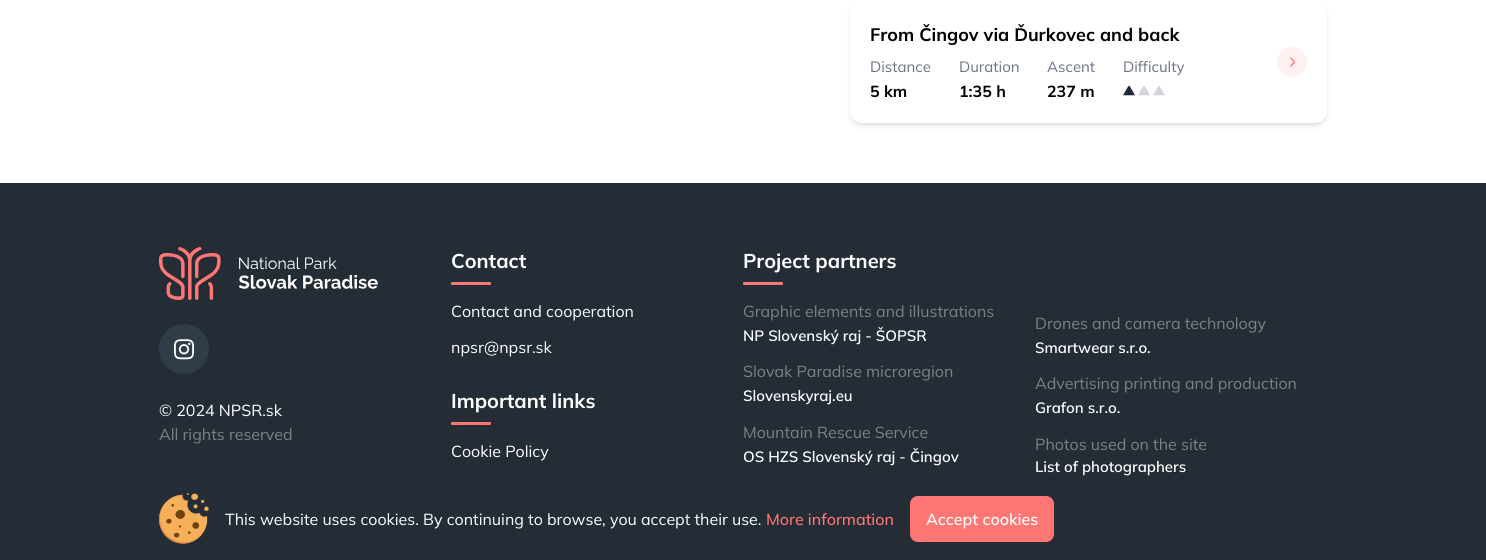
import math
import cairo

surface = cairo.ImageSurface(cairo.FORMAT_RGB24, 1486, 560)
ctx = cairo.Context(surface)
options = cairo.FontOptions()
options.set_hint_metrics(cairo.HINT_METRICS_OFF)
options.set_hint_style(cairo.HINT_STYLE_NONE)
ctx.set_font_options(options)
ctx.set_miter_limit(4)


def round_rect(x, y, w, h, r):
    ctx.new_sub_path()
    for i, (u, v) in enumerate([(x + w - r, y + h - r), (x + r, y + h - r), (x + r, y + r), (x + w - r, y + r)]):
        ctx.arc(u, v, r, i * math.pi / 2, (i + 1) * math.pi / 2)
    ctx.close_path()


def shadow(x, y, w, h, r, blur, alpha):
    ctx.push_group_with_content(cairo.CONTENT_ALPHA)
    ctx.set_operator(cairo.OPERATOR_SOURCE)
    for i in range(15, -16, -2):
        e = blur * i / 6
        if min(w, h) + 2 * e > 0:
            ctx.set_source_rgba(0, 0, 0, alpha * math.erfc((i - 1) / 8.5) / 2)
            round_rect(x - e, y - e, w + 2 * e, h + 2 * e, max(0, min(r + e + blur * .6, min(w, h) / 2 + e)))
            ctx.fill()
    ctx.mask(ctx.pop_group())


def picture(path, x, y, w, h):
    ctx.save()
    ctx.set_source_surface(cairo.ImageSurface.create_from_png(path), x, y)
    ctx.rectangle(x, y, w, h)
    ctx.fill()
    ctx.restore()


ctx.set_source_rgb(1, 1, 1)
ctx.paint()
ctx.set_source_rgb(0, 0, 0)
shadow(852, 5, 473, 118, 10, 2, 0.1)
shadow(851, 6, 475, 120, 11, 3, 0.1)
ctx.set_source_rgb(1, 1, 1)
round_rect(850, 1, 477, 122, 12)
ctx.fill()
ctx.select_font_face("Mulish", cairo.FONT_SLANT_NORMAL, cairo.FONT_WEIGHT_BOLD)
ctx.set_font_size(18)
ctx.set_source_rgb(0, 0, 0)
ctx.move_to(870, 41)
ctx.show_text("From Čingov via Ďurkovec and back")
ctx.select_font_face("Mulish")
ctx.set_font_size(15)
ctx.set_source_rgb(0.42, 0.447, 0.502)
ctx.move_to(870, 72)
ctx.show_text("Distance")
ctx.select_font_face("Mulish", cairo.FONT_SLANT_NORMAL, cairo.FONT_WEIGHT_BOLD)
ctx.set_font_size(16)
ctx.set_source_rgb(0, 0, 0)
ctx.move_to(870, 97)
ctx.show_text("5 km")
ctx.select_font_face("Mulish")
ctx.set_font_size(15)
ctx.set_source_rgb(0.42, 0.447, 0.502)
ctx.move_to(959, 72)
ctx.show_text("Duration")
ctx.select_font_face("Mulish", cairo.FONT_SLANT_NORMAL, cairo.FONT_WEIGHT_BOLD)
ctx.set_font_size(16)
ctx.set_source_rgb(0, 0, 0)
ctx.move_to(959, 97)
ctx.show_text("1:35 h")
ctx.select_font_face("Mulish")
ctx.set_font_size(15)
ctx.set_source_rgb(0.42, 0.447, 0.502)
ctx.move_to(1047, 72)
ctx.show_text("Ascent")
ctx.select_font_face("Mulish", cairo.FONT_SLANT_NORMAL, cairo.FONT_WEIGHT_BOLD)
ctx.set_font_size(16)
ctx.set_source_rgb(0, 0, 0)
ctx.move_to(1047, 97)
ctx.show_text("237 m")
ctx.select_font_face("Mulish")
ctx.set_font_size(15)
ctx.set_source_rgb(0.42, 0.447, 0.502)
ctx.move_to(1123, 72)
ctx.show_text("Difficulty")
picture("img1.png", 1123, 85, 12, 11)
picture("img2.png", 1138, 86, 12, 10)
picture("img2.png", 1153, 86, 12, 10)
ctx.set_source_rgb(1, 0.945, 0.945)
ctx.arc(1292, 62, 15, 0, 2 * math.pi)
ctx.fill()
picture("img3.png", 1290, 57, 5, 10)
ctx.set_source_rgb(0.141, 0.176, 0.208)
ctx.rectangle(0, 183, 1486, 377)
ctx.fill()
picture("img4.png", 159, 247, 219, 53)
ctx.set_source_rgb(0.188, 0.235, 0.278)
ctx.arc(184, 349, 25, 0, 2 * math.pi)
ctx.fill()
picture("img5.png", 174, 339, 20, 21)
ctx.set_font_size(16)
ctx.set_source_rgb(1, 1, 1)
ctx.move_to(159, 416)
ctx.show_text("© 2024 NPSR.sk")
ctx.set_source_rgb(0.486, 0.506, 0.525)
ctx.move_to(159, 440)
ctx.show_text("All rights reserved")
ctx.select_font_face("Mulish", cairo.FONT_SLANT_NORMAL, cairo.FONT_WEIGHT_BOLD)
ctx.set_font_size(20)
ctx.set_source_rgb(1, 1, 1)
ctx.move_to(451, 268)
ctx.show_text("Contact")
ctx.set_source_rgb(1, 0.463, 0.459)
round_rect(451, 282, 40, 3, 1)
ctx.fill()
ctx.select_font_face("Mulish")
ctx.set_font_size(16)
ctx.set_source_rgb(1, 1, 1)
ctx.move_to(451, 317)
ctx.show_text("Contact and cooperation")
ctx.move_to(451, 353)
ctx.show_text("npsr@npsr.sk")
ctx.select_font_face("Mulish", cairo.FONT_SLANT_NORMAL, cairo.FONT_WEIGHT_BOLD)
ctx.set_font_size(20)
ctx.move_to(451, 408)
ctx.show_text("Important links")
ctx.set_source_rgb(1, 0.463, 0.459)
round_rect(451, 422, 40, 3, 1)
ctx.fill()
ctx.select_font_face("Mulish")
ctx.set_font_size(16)
ctx.set_source_rgb(1, 1, 1)
ctx.move_to(451, 457)
ctx.show_text("Cookie Policy")
ctx.select_font_face("Mulish", cairo.FONT_SLANT_NORMAL, cairo.FONT_WEIGHT_BOLD)
ctx.set_font_size(20)
ctx.move_to(743, 268)
ctx.show_text("Project partners")
ctx.set_source_rgb(1, 0.463, 0.459)
round_rect(743, 282, 40, 3, 1)
ctx.fill()
ctx.select_font_face("Mulish")
ctx.set_font_size(16)
ctx.set_source_rgb(0.486, 0.506, 0.525)
ctx.move_to(743, 317)
ctx.show_text("Graphic elements and illustrations")
ctx.select_font_face("Mulish SemiBold")
ctx.set_font_size(15)
ctx.set_source_rgb(1, 1, 1)
ctx.move_to(743, 341)
ctx.show_text("NP Slovenský raj - ŠOPSR")
ctx.select_font_face("Mulish")
ctx.set_font_size(16)
ctx.set_source_rgb(0.486, 0.506, 0.525)
ctx.move_to(743, 377)
ctx.show_text("Slovak Paradise microregion")
ctx.select_font_face("Mulish SemiBold")
ctx.set_font_size(15)
ctx.set_source_rgb(1, 1, 1)
ctx.move_to(743, 401)
ctx.show_text("Slovenskyraj.eu")
ctx.select_font_face("Mulish")
ctx.set_font_size(16)
ctx.set_source_rgb(0.486, 0.506, 0.525)
ctx.move_to(743, 438)
ctx.show_text("Mountain Rescue Service")
ctx.select_font_face("Mulish SemiBold")
ctx.set_font_size(15)
ctx.set_source_rgb(1, 1, 1)
ctx.move_to(743, 462)
ctx.show_text("OS HZS Slovenský raj - Čingov")
ctx.select_font_face("Mulish")
ctx.set_font_size(16)
ctx.set_source_rgb(0.486, 0.506, 0.525)
ctx.move_to(1035, 329)
ctx.show_text("Drones and camera technology")
ctx.select_font_face("Mulish SemiBold")
ctx.set_font_size(15)
ctx.set_source_rgb(1, 1, 1)
ctx.move_to(1035, 353)
ctx.show_text("Smartwear s.r.o.")
ctx.select_font_face("Mulish")
ctx.set_font_size(16)
ctx.set_source_rgb(0.486, 0.506, 0.525)
ctx.move_to(1035, 389)
ctx.show_text("Advertising printing and production")
ctx.select_font_face("Mulish SemiBold")
ctx.set_font_size(15)
ctx.set_source_rgb(1, 1, 1)
ctx.move_to(1035, 413)
ctx.show_text("Grafon s.r.o.")
ctx.select_font_face("Mulish")
ctx.set_font_size(16)
ctx.set_source_rgb(0.486, 0.506, 0.525)
ctx.move_to(1035, 450)
ctx.show_text("Photos used on the site")
ctx.select_font_face("Mulish SemiBold")
ctx.set_font_size(15)
ctx.set_source_rgb(1, 1, 1)
ctx.move_to(1035, 472)
ctx.show_text("List of photographers")
picture("img6.png", 159, 493, 50, 51)
ctx.select_font_face("Mulish")
ctx.set_font_size(16)
ctx.move_to(225, 525)
ctx.show_text("This website uses cookies. By continuing to browse, you accept their use.")
ctx.select_font_face("Mulish Medium")
ctx.set_source_rgb(1, 0.463, 0.459)
ctx.move_to(766, 525)
ctx.show_text("More information")
round_rect(910, 496, 144, 46, 8)
ctx.fill()
ctx.select_font_face("Mulish SemiBold")
ctx.set_source_rgb(1, 1, 1)
ctx.move_to(926, 525)
ctx.show_text("Accept cookies")
surface.write_to_png("page.png")
